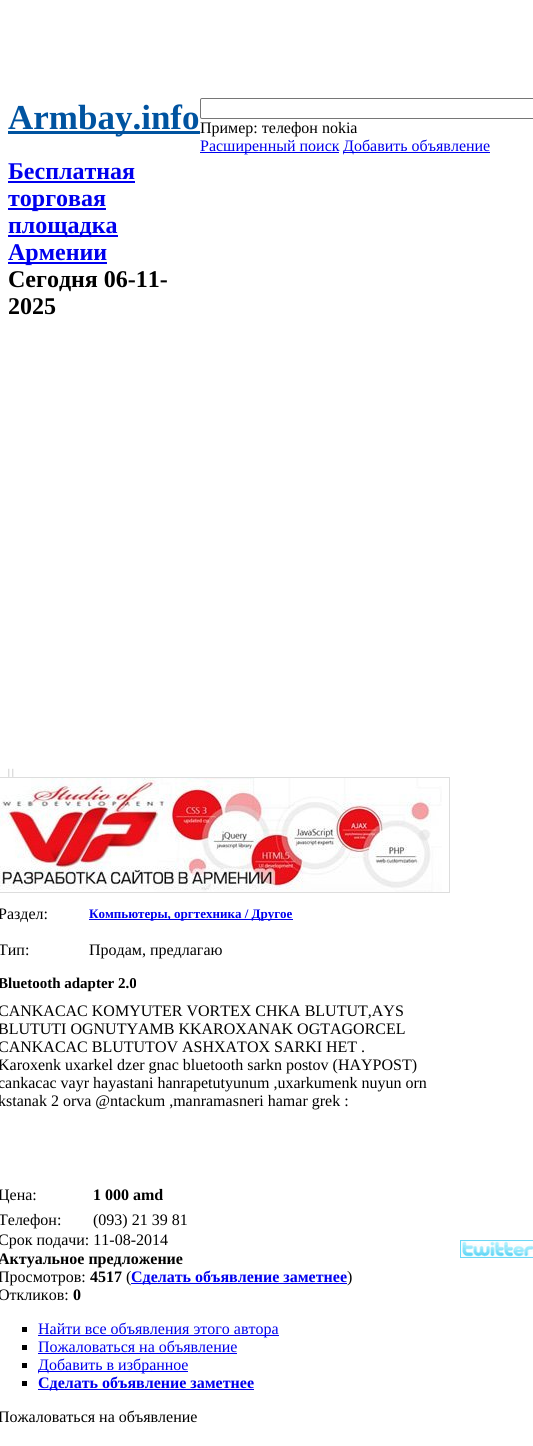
import math
import cairo

surface = cairo.ImageSurface(cairo.FORMAT_RGB24, 533, 1446)
ctx = cairo.Context(surface)
options = cairo.FontOptions()
options.set_hint_metrics(cairo.HINT_METRICS_OFF)
options.set_hint_style(cairo.HINT_STYLE_NONE)
ctx.set_font_options(options)
ctx.set_miter_limit(4)


def round_rect(x, y, w, h, r):
    ctx.new_sub_path()
    for i, (u, v) in enumerate([(x + w - r, y + h - r), (x + r, y + h - r), (x + r, y + r), (x + w - r, y + r)]):
        ctx.arc(u, v, r, i * math.pi / 2, (i + 1) * math.pi / 2)
    ctx.close_path()


def picture(path, x, y, w, h):
    ctx.save()
    ctx.set_source_surface(cairo.ImageSurface.create_from_png(path), x, y)
    ctx.rectangle(x, y, w, h)
    ctx.fill()
    ctx.restore()


ctx.set_source_rgb(1, 1, 1)
ctx.paint()
ctx.set_source_rgb(0, 0.325, 0.627)
ctx.rectangle(8, 131, 192, 3)
ctx.fill()
ctx.select_font_face("Liberation Serif", cairo.FONT_SLANT_NORMAL, cairo.FONT_WEIGHT_BOLD)
ctx.set_font_size(35)
ctx.move_to(8, 129)
ctx.show_text("Armbay.info")
ctx.set_font_size(24)
ctx.set_source_rgb(0, 0, 0.933)
ctx.move_to(8, 179)
ctx.show_text("Бесплатная")
ctx.rectangle(8, 181, 127, 2)
ctx.fill()
ctx.rectangle(8, 208, 98, 2)
ctx.fill()
ctx.move_to(8, 206)
ctx.show_text("торговая")
ctx.rectangle(8, 235, 110, 2)
ctx.fill()
ctx.move_to(8, 233)
ctx.show_text("площадка")
ctx.rectangle(8, 262, 99, 2)
ctx.fill()
ctx.move_to(8, 260)
ctx.show_text("Армении")
ctx.set_source_rgb(0, 0, 0)
ctx.move_to(8, 287)
ctx.show_text("Сегодня 06-11-")
ctx.move_to(8, 314)
ctx.show_text("2025")
round_rect(200.5, 98.5, 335, 20, 1.5)
ctx.set_source_rgb(0.463, 0.463, 0.463)
ctx.set_line_width(1)
ctx.stroke()
ctx.select_font_face("Liberation Serif")
ctx.set_font_size(16)
ctx.set_source_rgb(0, 0, 0)
ctx.move_to(200, 133)
ctx.show_text("Пример: телефон nokia")
ctx.set_source_rgb(0, 0, 0.933)
ctx.rectangle(200, 152, 139, 1)
ctx.fill()
ctx.move_to(200, 151)
ctx.show_text("Расширенный поиск")
ctx.rectangle(343, 152, 147, 1)
ctx.fill()
ctx.move_to(343, 151)
ctx.show_text("Добавить объявление")
ctx.set_font_size(9)
ctx.set_source_rgb(0.6, 0.6, 0.6)
ctx.move_to(8, 775)
ctx.show_text("| |")
ctx.rectangle(-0.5, 777.5, 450, 115)
ctx.set_source_rgb(0.867, 0.867, 0.867)
ctx.stroke()
picture("img1.png", 0, 778, 442, 114)
ctx.set_font_size(16)
ctx.set_source_rgb(0, 0, 0)
ctx.move_to(-2, 919)
ctx.show_text("Раздел:")
ctx.set_source_rgb(0, 0, 0.933)
ctx.rectangle(89, 919, 204, 1)
ctx.fill()
ctx.select_font_face("Liberation Serif", cairo.FONT_SLANT_NORMAL, cairo.FONT_WEIGHT_BOLD)
ctx.set_font_size(13)
ctx.move_to(89, 918)
ctx.show_text("Компьютеры, оргтехника / Другое")
ctx.select_font_face("Liberation Serif")
ctx.set_font_size(16)
ctx.set_source_rgb(0, 0, 0)
ctx.move_to(-2, 955)
ctx.show_text("Тип:")
ctx.move_to(89, 955)
ctx.show_text("Продам, предлагаю")
ctx.select_font_face("Liberation Serif", cairo.FONT_SLANT_NORMAL, cairo.FONT_WEIGHT_BOLD)
ctx.set_font_size(15)
ctx.move_to(-2, 988)
ctx.show_text("Bluetooth adapter 2.0")
ctx.select_font_face("Liberation Serif")
ctx.set_font_size(16)
ctx.move_to(-2, 1016)
ctx.show_text("CANKACAC KOMYUTER VORTEX CHKA BLUTUT,AYS")
ctx.move_to(-2, 1034)
ctx.show_text("BLUTUTI OGNUTYAMB KKAROXANAK OGTAGORCEL")
ctx.move_to(-2, 1052)
ctx.show_text("CANKACAC BLUTUTOV ASHXATOX SARKI HET .")
ctx.move_to(-2, 1070)
ctx.show_text("Karoxenk uxarkel dzer gnac bluetooth sarkn postov (HAYPOST)")
ctx.move_to(-2, 1088)
ctx.show_text("cankacac vayr hayastani hanrapetutyunum ,uxarkumenk nuyun orn")
ctx.move_to(-2, 1106)
ctx.show_text("kstanak 2 orva @ntackum ,manramasneri hamar grek :")
ctx.move_to(-2, 1200)
ctx.show_text("Цена:")
ctx.select_font_face("Liberation Serif", cairo.FONT_SLANT_NORMAL, cairo.FONT_WEIGHT_BOLD)
ctx.move_to(93, 1200)
ctx.show_text("1 000 amd")
ctx.select_font_face("Liberation Serif")
ctx.move_to(-2, 1225)
ctx.show_text("Телефон:")
ctx.move_to(93, 1225)
ctx.show_text("(093) 21 39 81")
ctx.move_to(-2, 1245)
ctx.show_text("Срок подачи: 11-08-2014")
ctx.select_font_face("Liberation Serif", cairo.FONT_SLANT_NORMAL, cairo.FONT_WEIGHT_BOLD)
ctx.move_to(-2, 1264)
ctx.show_text("Актуальное предложение")
ctx.select_font_face("Liberation Serif")
ctx.move_to(-2, 1282)
ctx.show_text("Просмотров:")
ctx.select_font_face("Liberation Serif", cairo.FONT_SLANT_NORMAL, cairo.FONT_WEIGHT_BOLD)
ctx.move_to(90, 1282)
ctx.show_text("4517")
ctx.select_font_face("Liberation Serif")
ctx.move_to(126, 1282)
ctx.show_text("(")
ctx.set_source_rgb(0, 0, 0.933)
ctx.rectangle(131, 1283, 216, 1)
ctx.fill()
ctx.select_font_face("Liberation Serif", cairo.FONT_SLANT_NORMAL, cairo.FONT_WEIGHT_BOLD)
ctx.move_to(131, 1282)
ctx.show_text("Сделать объявление заметнее")
ctx.select_font_face("Liberation Serif")
ctx.set_source_rgb(0, 0, 0)
ctx.move_to(347, 1282)
ctx.show_text(")")
ctx.move_to(-2, 1300)
ctx.show_text("Откликов:")
ctx.select_font_face("Liberation Serif", cairo.FONT_SLANT_NORMAL, cairo.FONT_WEIGHT_BOLD)
ctx.move_to(73, 1300)
ctx.show_text("0")
ctx.rectangle(22, 1327, 5, 5)
ctx.fill()
ctx.set_source_rgb(0, 0, 0.933)
ctx.rectangle(38, 1335, 241, 1)
ctx.fill()
ctx.select_font_face("Liberation Serif")
ctx.move_to(38, 1334)
ctx.show_text("Найти все объявления этого автора")
ctx.set_source_rgb(0, 0, 0)
ctx.rectangle(22, 1345, 5, 5)
ctx.fill()
ctx.set_source_rgb(0, 0, 0.933)
ctx.move_to(38, 1352)
ctx.show_text("Пожаловаться на объявление")
ctx.rectangle(38, 1353, 199, 1)
ctx.fill()
ctx.set_source_rgb(0, 0, 0)
ctx.rectangle(22, 1363, 5, 5)
ctx.fill()
ctx.set_source_rgb(0, 0, 0.933)
ctx.rectangle(38, 1371, 150, 1)
ctx.fill()
ctx.move_to(38, 1370)
ctx.show_text("Добавить в избранное")
ctx.set_source_rgb(0, 0, 0)
ctx.rectangle(22, 1381, 5, 5)
ctx.fill()
ctx.set_source_rgb(0, 0, 0.933)
ctx.rectangle(38, 1389, 216, 1)
ctx.fill()
ctx.select_font_face("Liberation Serif", cairo.FONT_SLANT_NORMAL, cairo.FONT_WEIGHT_BOLD)
ctx.move_to(38, 1388)
ctx.show_text("Сделать объявление заметнее")
ctx.select_font_face("Liberation Serif")
ctx.set_source_rgb(0, 0, 0)
ctx.move_to(-2, 1422)
ctx.show_text("Пожаловаться на объявление")
picture("img2.png", 460, 1240, 73, 18)
surface.write_to_png("page.png")
